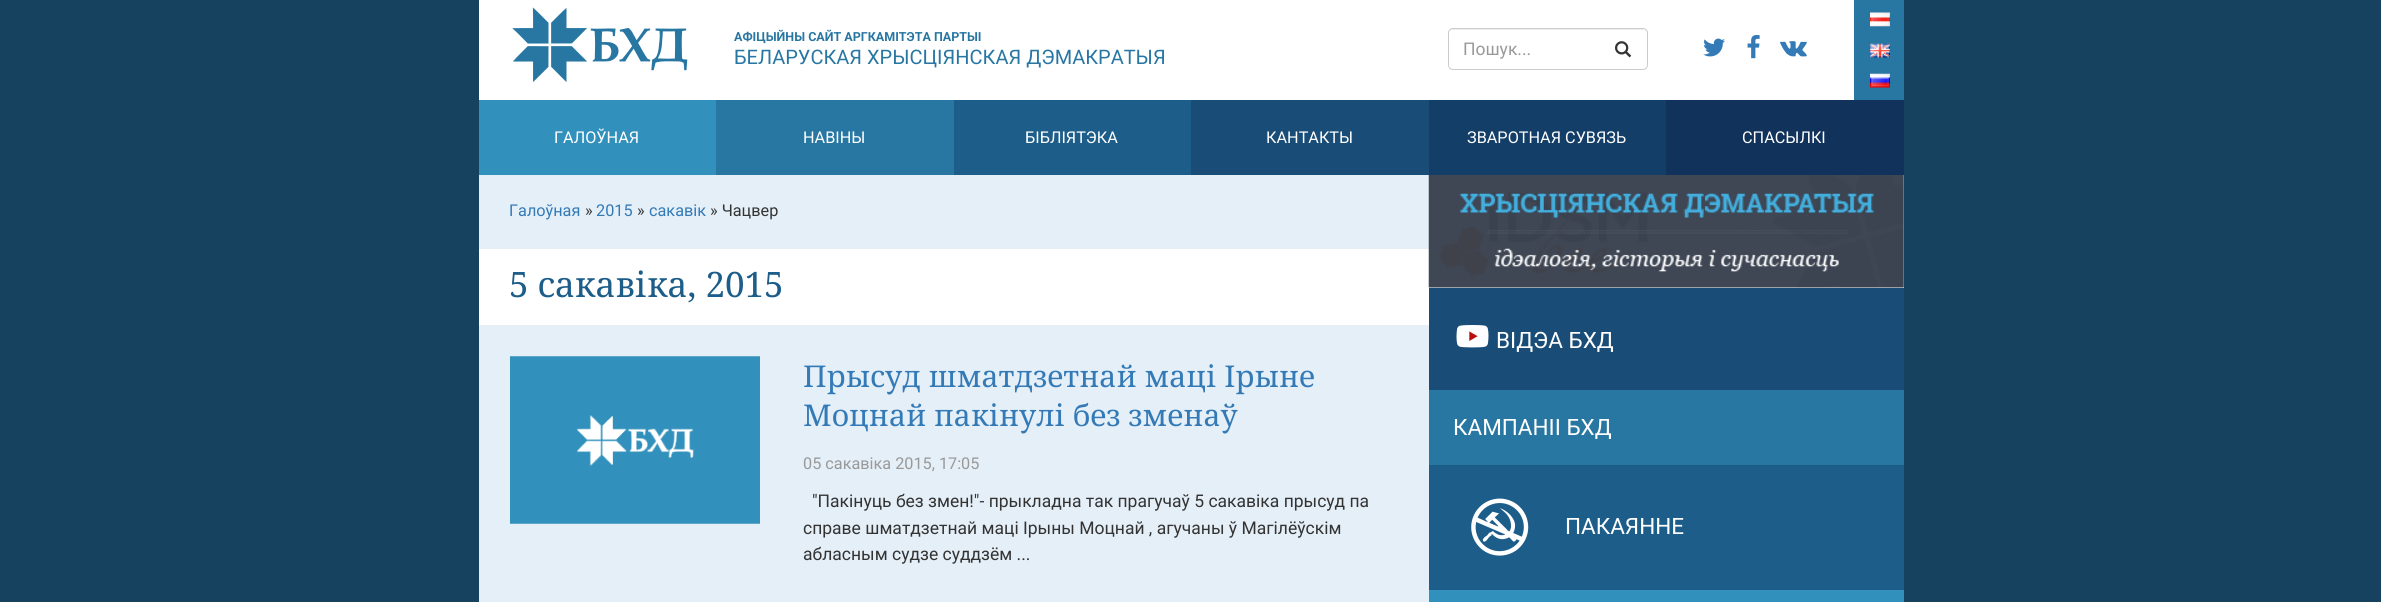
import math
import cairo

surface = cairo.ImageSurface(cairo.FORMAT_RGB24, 2381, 602)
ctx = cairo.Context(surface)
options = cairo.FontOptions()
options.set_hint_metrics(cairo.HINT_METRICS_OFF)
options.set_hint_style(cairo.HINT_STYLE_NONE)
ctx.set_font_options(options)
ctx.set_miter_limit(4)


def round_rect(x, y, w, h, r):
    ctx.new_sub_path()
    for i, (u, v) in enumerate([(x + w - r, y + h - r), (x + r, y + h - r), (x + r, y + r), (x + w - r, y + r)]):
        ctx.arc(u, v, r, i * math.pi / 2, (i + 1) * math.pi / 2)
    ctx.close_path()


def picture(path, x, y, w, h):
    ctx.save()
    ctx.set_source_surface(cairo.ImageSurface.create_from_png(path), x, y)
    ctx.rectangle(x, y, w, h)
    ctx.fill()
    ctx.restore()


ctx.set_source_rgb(0.086, 0.259, 0.376)
ctx.paint()
ctx.set_source_rgb(1, 1, 1)
ctx.rectangle(479, 0, 1375, 100)
ctx.fill()
picture("img1.png", 512, 7, 176, 75)
ctx.select_font_face("Roboto", cairo.FONT_SLANT_NORMAL, cairo.FONT_WEIGHT_BOLD)
ctx.set_font_size(12.5)
ctx.set_source_rgb(0.157, 0.467, 0.639)
ctx.move_to(734, 41)
ctx.show_text("АФІЦЫЙНЫ САЙТ АРГКАМІТЭТА ПАРТЫІ")
ctx.select_font_face("Roboto")
ctx.set_font_size(20)
ctx.move_to(734, 64)
ctx.show_text("БЕЛАРУСКАЯ ХРЫСЦІЯНСКАЯ ДЭМАКРАТЫЯ")
ctx.set_source_rgb(0.925, 0.925, 0.925)
ctx.new_path()
ctx.move_to(1452, 30)
ctx.line_to(1642, 30)
ctx.curve_to(1645, 30, 1646, 32, 1646, 34)
ctx.line_to(1646, 33)
ctx.curve_to(1646, 31, 1644, 29, 1642, 29)
ctx.line_to(1453, 29)
ctx.curve_to(1451, 29, 1449, 31, 1449, 33)
ctx.line_to(1449, 34)
ctx.curve_to(1449, 32, 1450, 30, 1452, 30)
ctx.close_path()
ctx.fill()
round_rect(1448.5, 28.5, 199, 41, 4.5)
ctx.set_source_rgb(0.8, 0.8, 0.8)
ctx.set_line_width(1)
ctx.stroke()
ctx.set_font_size(17.5)
ctx.set_source_rgb(0.6, 0.6, 0.6)
ctx.move_to(1463, 55)
ctx.show_text("Пошук...")
picture("img2.png", 1615, 41, 17, 17)
picture("img3.png", 1703, 38, 22, 19)
picture("img4.png", 1747, 35, 13, 24)
picture("img5.png", 1780, 41, 27, 16)
ctx.set_source_rgb(0.157, 0.467, 0.639)
ctx.rectangle(1854, 0, 50, 100)
ctx.fill()
picture("img6.png", 1870, 12, 20, 15)
picture("img7.png", 1870, 43, 20, 15)
picture("img8.png", 1870, 73, 20, 15)
ctx.set_source_rgb(0.192, 0.569, 0.737)
ctx.rectangle(479, 100, 237, 75)
ctx.fill()
ctx.set_font_size(16.25)
ctx.set_source_rgb(1, 1, 1)
ctx.move_to(554, 143)
ctx.show_text("ГАЛОЎНАЯ")
ctx.set_source_rgb(0.157, 0.467, 0.639)
ctx.rectangle(716, 100, 238, 75)
ctx.fill()
ctx.set_source_rgb(1, 1, 1)
ctx.move_to(803, 143)
ctx.show_text("НАВІНЫ")
ctx.set_source_rgb(0.114, 0.365, 0.537)
ctx.rectangle(954, 100, 237, 75)
ctx.fill()
ctx.set_source_rgb(1, 1, 1)
ctx.move_to(1025, 143)
ctx.show_text("БІБЛІЯТЭКА")
ctx.set_source_rgb(0.098, 0.302, 0.467)
ctx.rectangle(1191, 100, 238, 75)
ctx.fill()
ctx.set_source_rgb(1, 1, 1)
ctx.move_to(1266, 143)
ctx.show_text("КАНТАКТЫ")
ctx.set_source_rgb(0.078, 0.243, 0.408)
ctx.rectangle(1429, 100, 237, 75)
ctx.fill()
ctx.set_source_rgb(1, 1, 1)
ctx.move_to(1467, 143)
ctx.show_text("ЗВАРОТНАЯ СУВЯЗЬ")
ctx.set_source_rgb(0.063, 0.196, 0.357)
ctx.rectangle(1666, 100, 238, 75)
ctx.fill()
ctx.set_source_rgb(1, 1, 1)
ctx.move_to(1742, 143)
ctx.show_text("СПАСЫЛКІ")
ctx.rectangle(479, 249, 950, 76)
ctx.fill()
ctx.set_source_rgb(0.898, 0.937, 0.969)
ctx.rectangle(479, 175, 950, 74)
ctx.fill()
ctx.set_source_rgb(0.2, 0.478, 0.718)
ctx.move_to(509, 216)
ctx.show_text("Галоўная")
ctx.set_source_rgb(0.2, 0.2, 0.2)
ctx.move_to(585, 216)
ctx.show_text("»")
ctx.set_source_rgb(0.2, 0.478, 0.718)
ctx.move_to(596, 216)
ctx.show_text("2015")
ctx.set_source_rgb(0.2, 0.2, 0.2)
ctx.move_to(637, 216)
ctx.show_text("»")
ctx.set_source_rgb(0.2, 0.478, 0.718)
ctx.move_to(649, 216)
ctx.show_text("сакавік")
ctx.set_source_rgb(0.2, 0.2, 0.2)
ctx.move_to(710, 216)
ctx.show_text("» Чацвер")
ctx.select_font_face("Noto Serif")
ctx.set_font_size(35)
ctx.set_source_rgb(0.114, 0.365, 0.537)
ctx.move_to(509, 297)
ctx.show_text("5 сакавіка, 2015")
ctx.set_source_rgb(0.898, 0.937, 0.969)
ctx.rectangle(479, 325, 950, 277)
ctx.fill()
picture("img9.png", 510, 356, 250, 168)
ctx.set_font_size(30)
ctx.set_source_rgb(0.2, 0.478, 0.718)
ctx.move_to(803, 387)
ctx.show_text("Прысуд шматдзетнай маці Ірыне")
ctx.move_to(803, 426)
ctx.show_text("Моцнай пакінулі без зменаў")
ctx.select_font_face("Roboto")
ctx.set_font_size(16.25)
ctx.set_source_rgb(0.6, 0.6, 0.6)
ctx.move_to(803, 469)
ctx.show_text("05 сакавіка 2015, 17:05")
ctx.set_font_size(17.5)
ctx.set_source_rgb(0.2, 0.2, 0.2)
ctx.move_to(812, 507)
ctx.show_text("\"Пакінуць без змен!\"- прыкладна так прагучаў 5 сакавіка прысуд па")
ctx.move_to(803, 534)
ctx.show_text("справе шматдзетнай маці Ірыны Моцнай , агучаны ў Магілёўскім")
ctx.move_to(803, 560)
ctx.show_text("абласным судзе суддзём ...")
ctx.set_source_rgb(1, 1, 1)
ctx.rectangle(1429, 175, 475, 113)
ctx.fill()
picture("img10.png", 1428, 175, 476, 113)
ctx.set_source_rgb(0.098, 0.302, 0.467)
ctx.rectangle(1429, 288, 475, 102)
ctx.fill()
picture("img11.png", 1456, 325, 33, 23)
ctx.set_font_size(22.5)
ctx.set_source_rgb(1, 1, 1)
ctx.move_to(1496, 348)
ctx.show_text("ВІДЭА БХД")
ctx.set_source_rgb(0.157, 0.467, 0.639)
ctx.rectangle(1429, 390, 475, 75)
ctx.fill()
ctx.set_source_rgb(1, 1, 1)
ctx.move_to(1453, 435)
ctx.show_text("КАМПАНІІ БХД")
ctx.set_source_rgb(0.114, 0.365, 0.537)
ctx.rectangle(1429, 465, 475, 125)
ctx.fill()
picture("img12.png", 1471, 498, 58, 58)
ctx.set_source_rgb(1, 1, 1)
ctx.move_to(1565, 534)
ctx.show_text("ПАКАЯННЕ")
ctx.set_source_rgb(0.192, 0.569, 0.737)
ctx.rectangle(1429, 590, 475, 12)
ctx.fill()
surface.write_to_png("page.png")
